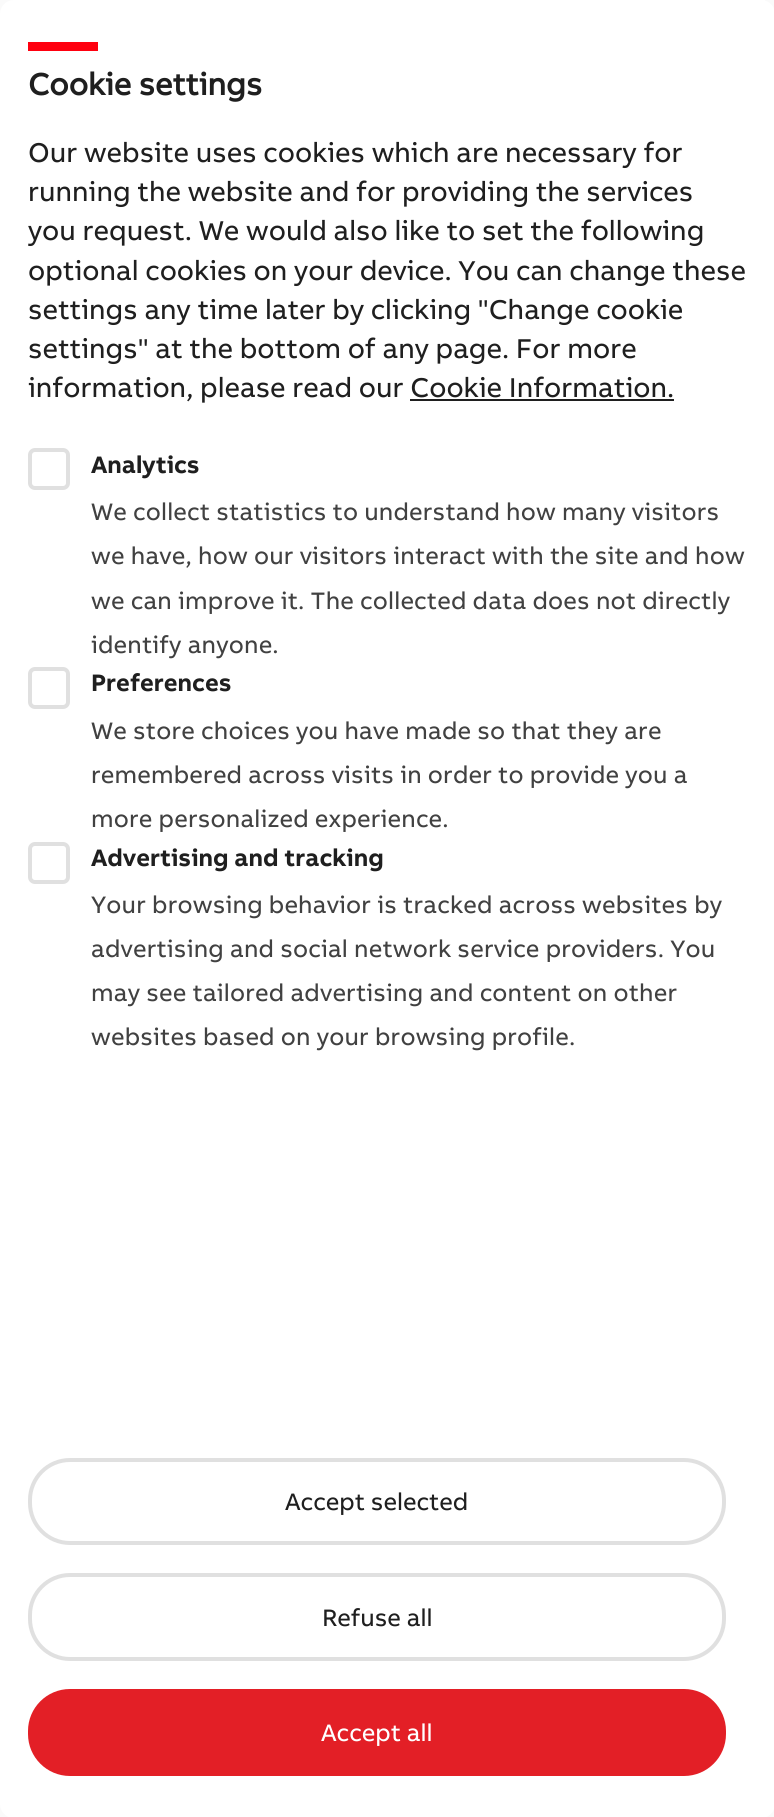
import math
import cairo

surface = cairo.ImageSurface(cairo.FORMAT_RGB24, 774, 1817)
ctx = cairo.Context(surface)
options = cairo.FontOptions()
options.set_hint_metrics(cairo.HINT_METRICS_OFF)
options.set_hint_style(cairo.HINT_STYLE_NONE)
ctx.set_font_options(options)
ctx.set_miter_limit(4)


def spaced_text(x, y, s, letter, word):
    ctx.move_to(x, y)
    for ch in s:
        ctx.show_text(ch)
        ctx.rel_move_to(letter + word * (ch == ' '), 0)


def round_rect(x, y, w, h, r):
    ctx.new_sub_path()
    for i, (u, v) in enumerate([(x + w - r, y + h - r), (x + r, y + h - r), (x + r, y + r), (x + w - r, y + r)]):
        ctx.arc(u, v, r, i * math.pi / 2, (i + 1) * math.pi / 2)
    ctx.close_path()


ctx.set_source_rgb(0.98, 0.98, 0.98)
ctx.paint()
ctx.set_source_rgb(1, 1, 1)
ctx.rectangle(761, 0, 4, 1)
ctx.fill()
round_rect(0, 0, 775, 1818, 14)
ctx.fill()
ctx.set_source_rgb(1, 0, 0.059)
ctx.rectangle(28, 42, 70, 9)
ctx.fill()
ctx.select_font_face("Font", cairo.FONT_SLANT_NORMAL, cairo.FONT_WEIGHT_BOLD)
ctx.set_font_size(31.5)
ctx.set_source_rgb(0.122, 0.122, 0.122)
ctx.move_to(28, 95)
ctx.show_text("Cookie settings")
ctx.select_font_face("Font")
ctx.set_font_size(28)
ctx.move_to(28, 162)
ctx.show_text("Our website uses cookies which are necessary for")
ctx.move_to(28, 201)
ctx.show_text("running the website and for providing the services")
ctx.move_to(28, 240)
ctx.show_text("you request. We would also like to set the following")
ctx.move_to(28, 280)
ctx.show_text("optional cookies on your device. You can change these")
ctx.move_to(28, 319)
ctx.show_text("settings any time later by clicking \"Change cookie")
ctx.move_to(28, 358)
ctx.show_text("settings\" at the bottom of any page. For more")
ctx.move_to(28, 397)
ctx.show_text("information, please read our Cookie Information.")
ctx.rectangle(410, 399, 264, 2)
ctx.fill()
round_rect(30, 450, 38, 38, 5)
ctx.set_source_rgb(0.878, 0.878, 0.878)
ctx.set_line_width(4)
ctx.stroke()
ctx.select_font_face("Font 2", cairo.FONT_SLANT_NORMAL, cairo.FONT_WEIGHT_BOLD)
ctx.set_font_size(24.5)
ctx.set_source_rgb(0.122, 0.122, 0.122)
ctx.move_to(91, 473)
ctx.show_text("Analytics")
ctx.select_font_face("Font")
ctx.set_source_rgb(0.255, 0.255, 0.255)
spaced_text(91, 520, "We collect statistics to understand how many visitors", 0.18, 0)
spaced_text(91, 564, "we have, how our visitors interact with the site and how", 0.18, 0)
spaced_text(91, 609, "we can improve it. The collected data does not directly", 0.18, 0)
spaced_text(91, 653, "identify anyone.", 0.18, 0)
round_rect(30, 669, 38, 38, 5)
ctx.set_source_rgb(0.878, 0.878, 0.878)
ctx.stroke()
ctx.select_font_face("Font 2", cairo.FONT_SLANT_NORMAL, cairo.FONT_WEIGHT_BOLD)
ctx.set_source_rgb(0.122, 0.122, 0.122)
ctx.move_to(91, 691)
ctx.show_text("Preferences")
ctx.select_font_face("Font")
ctx.set_source_rgb(0.255, 0.255, 0.255)
spaced_text(91, 739, "We store choices you have made so that they are", 0.18, 0)
spaced_text(91, 783, "remembered across visits in order to provide you a", 0.18, 0)
spaced_text(91, 827, "more personalized experience.", 0.18, 0)
round_rect(30, 844, 38, 38, 5)
ctx.set_source_rgb(0.878, 0.878, 0.878)
ctx.stroke()
ctx.select_font_face("Font 2", cairo.FONT_SLANT_NORMAL, cairo.FONT_WEIGHT_BOLD)
ctx.set_source_rgb(0.122, 0.122, 0.122)
ctx.move_to(91, 866)
ctx.show_text("Advertising and tracking")
ctx.select_font_face("Font")
ctx.set_source_rgb(0.255, 0.255, 0.255)
spaced_text(91, 913, "Your browsing behavior is tracked across websites by", 0.18, 0)
spaced_text(91, 957, "advertising and social network service providers. You", 0.18, 0)
spaced_text(91, 1001, "may see tailored advertising and content on other", 0.18, 0)
spaced_text(91, 1045, "websites based on your browsing profile.", 0.18, 0)
round_rect(30, 1460, 694, 83, 40)
ctx.set_source_rgb(0.878, 0.878, 0.878)
ctx.stroke()
ctx.set_source_rgb(0.122, 0.122, 0.122)
ctx.move_to(285, 1510)
ctx.show_text("Accept selected")
round_rect(30, 1575, 694, 84, 40)
ctx.set_source_rgb(0.878, 0.878, 0.878)
ctx.stroke()
ctx.set_source_rgb(0.122, 0.122, 0.122)
ctx.move_to(322, 1626)
ctx.show_text("Refuse all")
ctx.set_source_rgb(0.89, 0.122, 0.149)
round_rect(28, 1689, 698, 87, 42)
ctx.fill()
ctx.set_source_rgb(1, 1, 1)
ctx.move_to(321, 1741)
ctx.show_text("Accept all")
surface.write_to_png("page.png")
